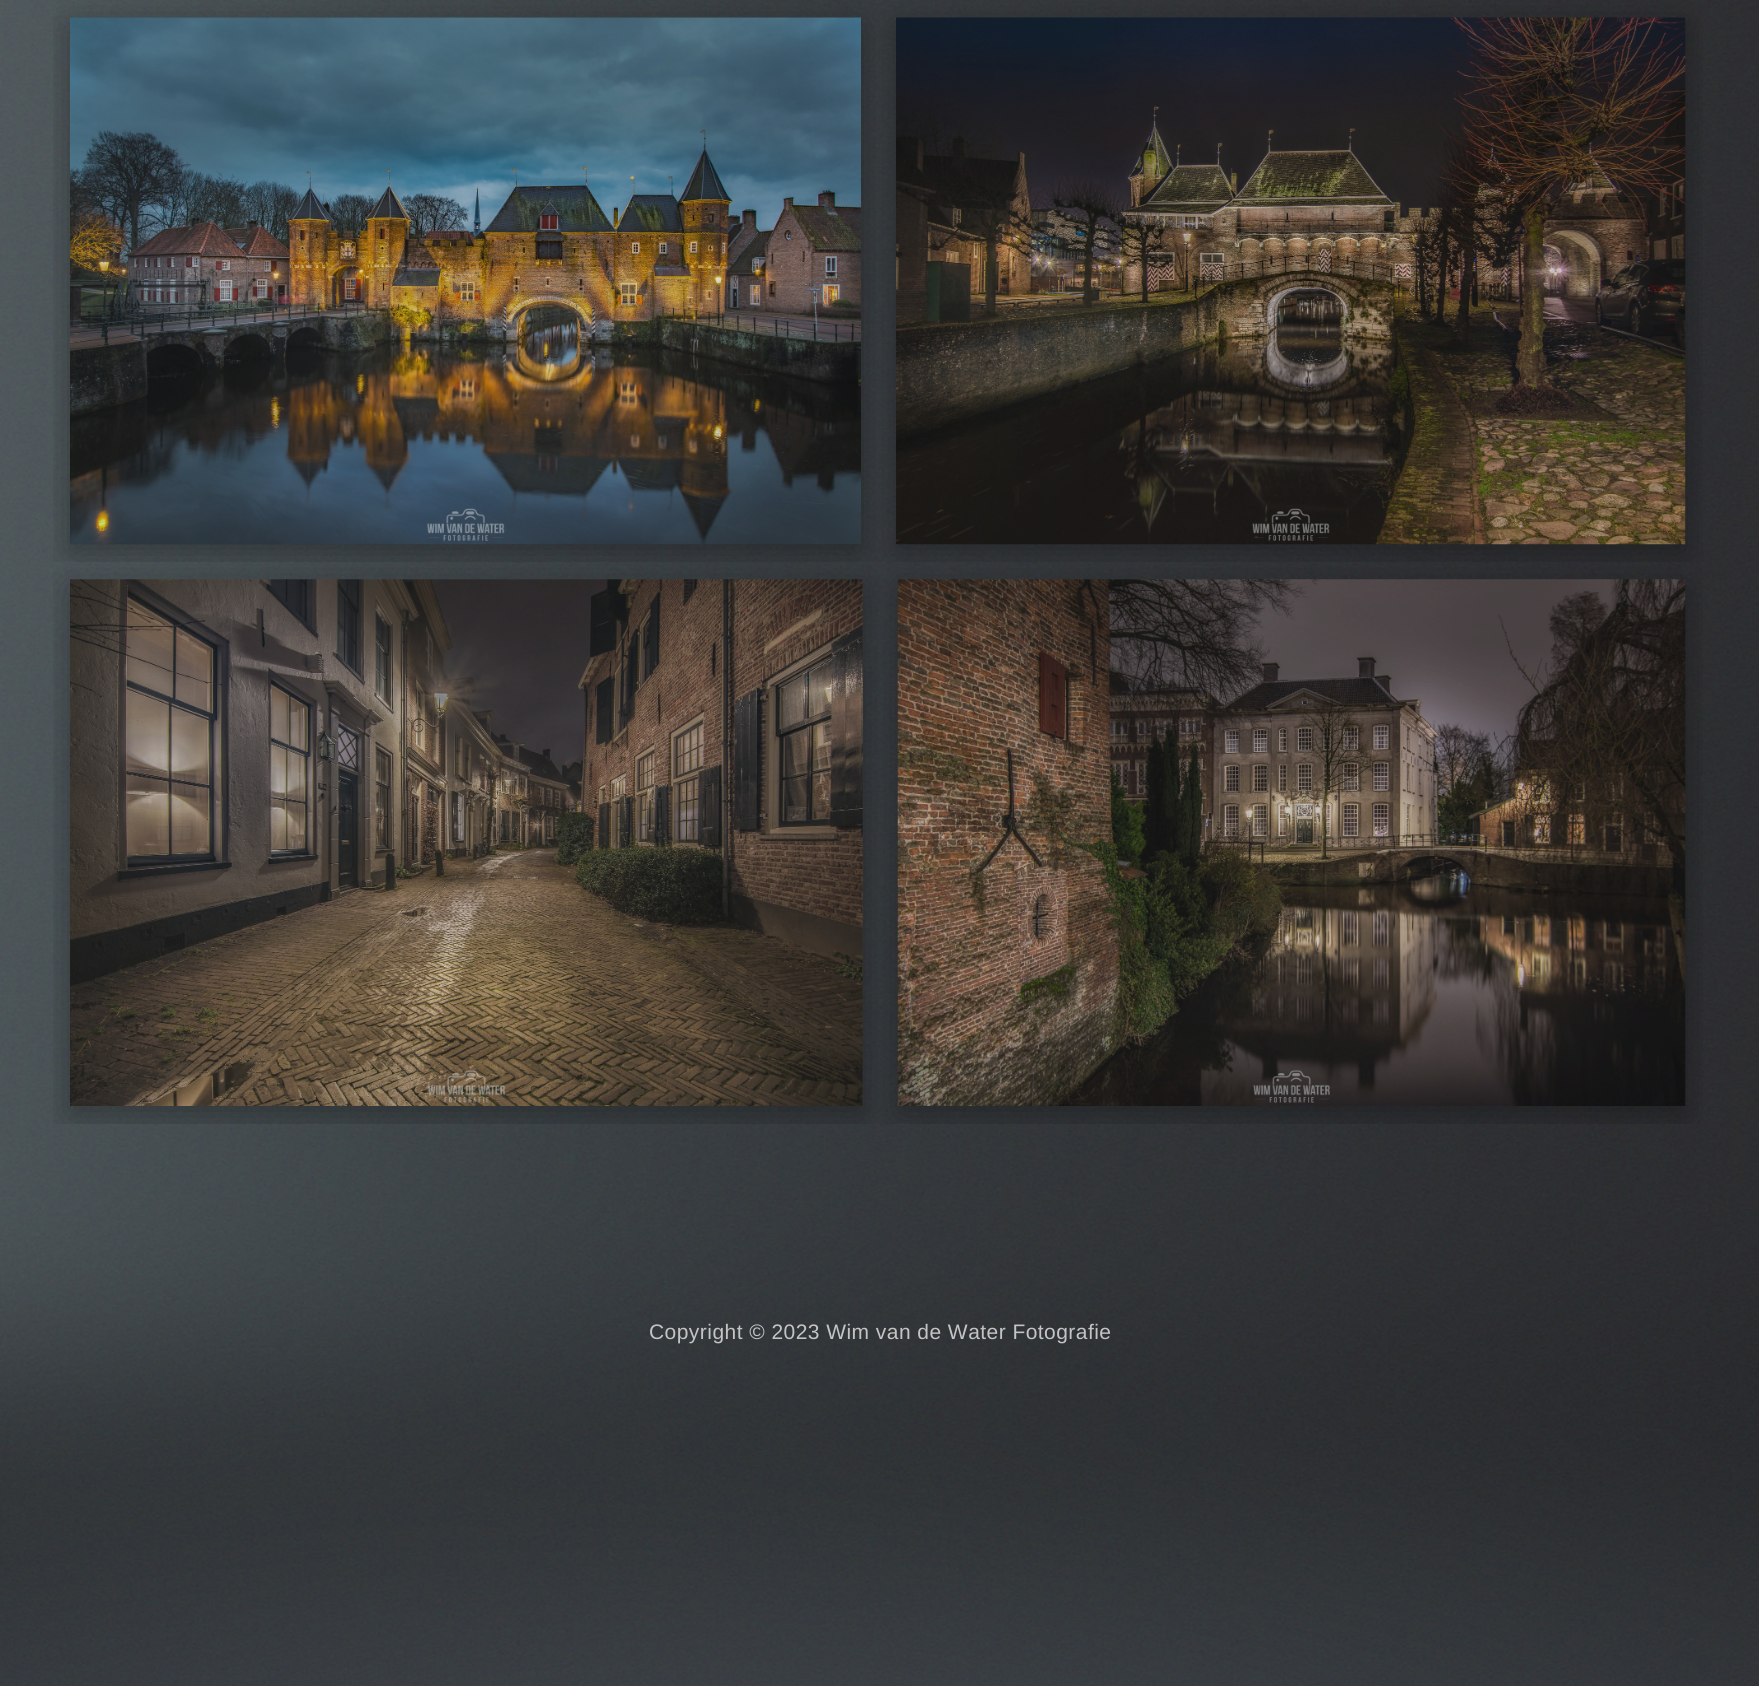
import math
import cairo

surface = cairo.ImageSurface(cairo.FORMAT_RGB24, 1759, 1686)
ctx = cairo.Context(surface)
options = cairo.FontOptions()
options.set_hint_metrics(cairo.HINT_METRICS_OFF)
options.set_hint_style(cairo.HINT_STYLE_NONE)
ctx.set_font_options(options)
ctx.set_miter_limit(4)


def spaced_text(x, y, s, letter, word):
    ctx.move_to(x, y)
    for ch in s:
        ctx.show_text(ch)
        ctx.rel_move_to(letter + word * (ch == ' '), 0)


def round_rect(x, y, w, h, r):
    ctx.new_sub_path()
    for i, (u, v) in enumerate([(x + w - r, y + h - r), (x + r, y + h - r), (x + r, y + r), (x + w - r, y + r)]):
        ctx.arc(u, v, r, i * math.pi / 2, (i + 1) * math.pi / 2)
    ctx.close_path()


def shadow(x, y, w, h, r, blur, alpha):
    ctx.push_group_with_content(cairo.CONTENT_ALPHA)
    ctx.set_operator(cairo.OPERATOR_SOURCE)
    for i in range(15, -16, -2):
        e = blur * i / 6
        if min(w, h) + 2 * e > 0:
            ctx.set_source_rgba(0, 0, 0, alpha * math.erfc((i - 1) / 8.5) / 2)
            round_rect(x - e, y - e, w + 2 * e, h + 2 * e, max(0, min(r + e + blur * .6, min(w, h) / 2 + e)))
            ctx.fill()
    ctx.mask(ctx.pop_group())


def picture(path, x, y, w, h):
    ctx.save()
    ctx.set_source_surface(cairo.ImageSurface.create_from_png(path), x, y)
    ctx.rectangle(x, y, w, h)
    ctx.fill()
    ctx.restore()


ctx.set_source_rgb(1, 1, 1)
ctx.paint()
picture("img1.png", 0, 0, 1759, 1686)
ctx.save()
ctx.rectangle(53, 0, 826, 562)
ctx.clip()
ctx.set_fill_rule(cairo.FILL_RULE_EVEN_ODD)
ctx.new_path()
ctx.move_to(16, 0)
ctx.line_to(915, 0)
ctx.line_to(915, 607)
ctx.line_to(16, 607)
ctx.close_path()
ctx.move_to(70, 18)
ctx.line_to(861, 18)
ctx.line_to(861, 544)
ctx.line_to(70, 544)
ctx.close_path()
ctx.clip()
ctx.set_source_rgb(0, 0, 0)
shadow(70, 26, 791, 527, 0, 17.5, 0.33)
ctx.restore()
picture("img2.png", 70, 17, 791, 528)
ctx.save()
ctx.rectangle(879, 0, 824, 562)
ctx.clip()
ctx.set_fill_rule(cairo.FILL_RULE_EVEN_ODD)
ctx.new_path()
ctx.move_to(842, 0)
ctx.line_to(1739, 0)
ctx.line_to(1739, 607)
ctx.line_to(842, 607)
ctx.close_path()
ctx.move_to(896, 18)
ctx.line_to(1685, 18)
ctx.line_to(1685, 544)
ctx.line_to(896, 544)
ctx.close_path()
ctx.clip()
ctx.set_source_rgb(0, 0, 0)
shadow(896, 26, 789, 527, 0, 17.5, 0.32)
ctx.restore()
picture("img3.png", 896, 17, 790, 528)
ctx.save()
ctx.rectangle(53, 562, 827, 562)
ctx.clip()
ctx.set_fill_rule(cairo.FILL_RULE_EVEN_ODD)
ctx.new_path()
ctx.move_to(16, 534)
ctx.line_to(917, 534)
ctx.line_to(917, 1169)
ctx.line_to(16, 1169)
ctx.close_path()
ctx.move_to(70, 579)
ctx.line_to(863, 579)
ctx.line_to(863, 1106)
ctx.line_to(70, 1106)
ctx.close_path()
ctx.clip()
ctx.set_source_rgb(0, 0, 0)
shadow(70, 588, 793, 527, 0, 17.5, 0.32)
ctx.restore()
picture("img4.png", 70, 579, 793, 527)
ctx.save()
ctx.rectangle(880, 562, 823, 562)
ctx.clip()
ctx.set_fill_rule(cairo.FILL_RULE_EVEN_ODD)
ctx.new_path()
ctx.move_to(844, 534)
ctx.line_to(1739, 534)
ctx.line_to(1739, 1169)
ctx.line_to(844, 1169)
ctx.close_path()
ctx.move_to(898, 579)
ctx.line_to(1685, 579)
ctx.line_to(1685, 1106)
ctx.line_to(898, 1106)
ctx.close_path()
ctx.clip()
ctx.set_source_rgb(0, 0, 0)
shadow(898, 588, 787, 527, 0, 17.5, 0.32)
ctx.restore()
picture("img5.png", 897, 579, 789, 527)
ctx.select_font_face("Liberation Sans")
ctx.set_font_size(21)
ctx.set_source_rgb(0.769, 0.769, 0.769)
spaced_text(649, 1339, "Copyright © 2023 Wim van de Water Fotografie", 0.45, 0)
surface.write_to_png("page.png")
